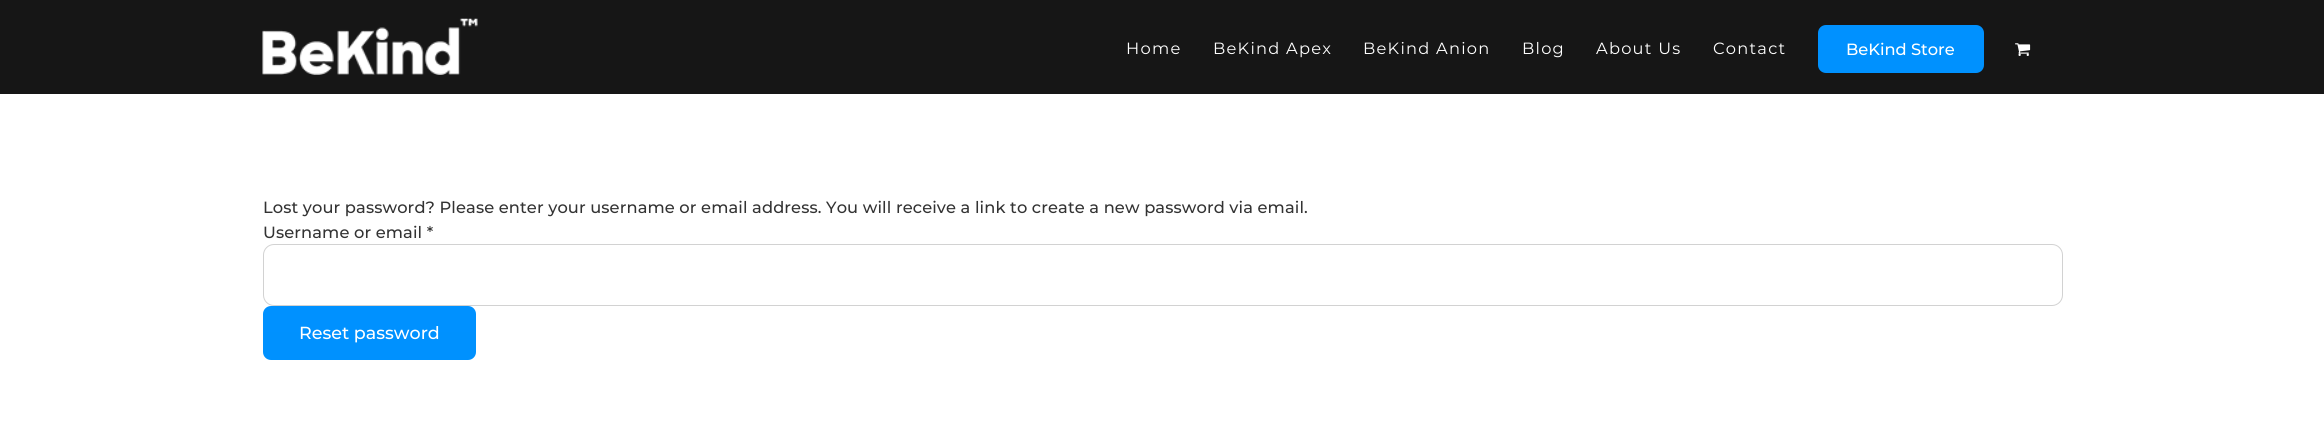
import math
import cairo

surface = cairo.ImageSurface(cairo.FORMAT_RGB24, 2324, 425)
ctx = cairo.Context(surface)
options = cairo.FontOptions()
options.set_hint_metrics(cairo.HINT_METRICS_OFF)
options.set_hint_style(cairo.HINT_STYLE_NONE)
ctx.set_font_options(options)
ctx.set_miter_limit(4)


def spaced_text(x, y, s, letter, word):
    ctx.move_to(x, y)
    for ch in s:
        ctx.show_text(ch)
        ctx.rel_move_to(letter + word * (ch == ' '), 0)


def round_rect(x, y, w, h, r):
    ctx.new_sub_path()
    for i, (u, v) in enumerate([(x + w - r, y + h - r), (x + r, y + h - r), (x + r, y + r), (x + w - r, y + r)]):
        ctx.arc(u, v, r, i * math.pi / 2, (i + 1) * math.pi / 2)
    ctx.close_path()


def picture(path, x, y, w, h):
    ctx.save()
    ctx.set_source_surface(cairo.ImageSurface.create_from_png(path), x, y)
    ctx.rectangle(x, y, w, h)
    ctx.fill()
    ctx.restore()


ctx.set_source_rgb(1, 1, 1)
ctx.paint()
ctx.set_source_rgb(0.086, 0.086, 0.086)
ctx.rectangle(0, 0, 2324, 94)
ctx.fill()
picture("img1.png", 262, 18, 216, 57)
ctx.select_font_face("Montserrat")
ctx.set_font_size(16.25)
ctx.set_source_rgb(1, 1, 1)
spaced_text(1126, 54, "Home", 1.25, 0)
spaced_text(1213, 54, "BeKind Apex", 1.25, 0)
spaced_text(1363, 54, "BeKind Anion", 1.25, 0)
spaced_text(1522, 54, "Blog", 1.25, 0)
spaced_text(1596, 54, "About Us", 1.25, 0)
spaced_text(1713, 54, "Contact", 1.25, 0)
gradient = cairo.LinearGradient(1901, 25, 1901, 73)
gradient.add_color_stop_rgba(0, 0, 0.569, 1, 1)
gradient.add_color_stop_rgba(1, 0, 0.569, 0.996, 1)
ctx.set_source(gradient)
round_rect(1818, 25, 166, 48, 8)
ctx.fill()
ctx.select_font_face("Montserrat Medium")
ctx.set_source_rgb(1, 1, 1)
ctx.move_to(1846, 55)
ctx.show_text("BeKind Store")
picture("img2.png", 2015, 43, 16, 13)
ctx.set_source_rgb(0.2, 0.2, 0.2)
spaced_text(263, 213, "Lost your password? Please enter your username or email address. You will receive a link to create a new password via email.", 0.12, 0)
spaced_text(263, 238, "Username or email *", 0.12, 0)
round_rect(263.5, 244.5, 1799, 61, 10.5)
ctx.set_source_rgb(0.824, 0.824, 0.824)
ctx.set_line_width(1)
ctx.stroke()
gradient = cairo.LinearGradient(369, 306, 369, 360)
gradient.add_color_stop_rgba(0, 0, 0.569, 1, 1)
gradient.add_color_stop_rgba(1, 0, 0.569, 0.996, 1)
ctx.set_source(gradient)
round_rect(263, 306, 213, 54, 8)
ctx.fill()
ctx.set_font_size(17.5)
ctx.set_source_rgb(1, 1, 1)
ctx.move_to(299, 339)
ctx.show_text("Reset password")
surface.write_to_png("page.png")
